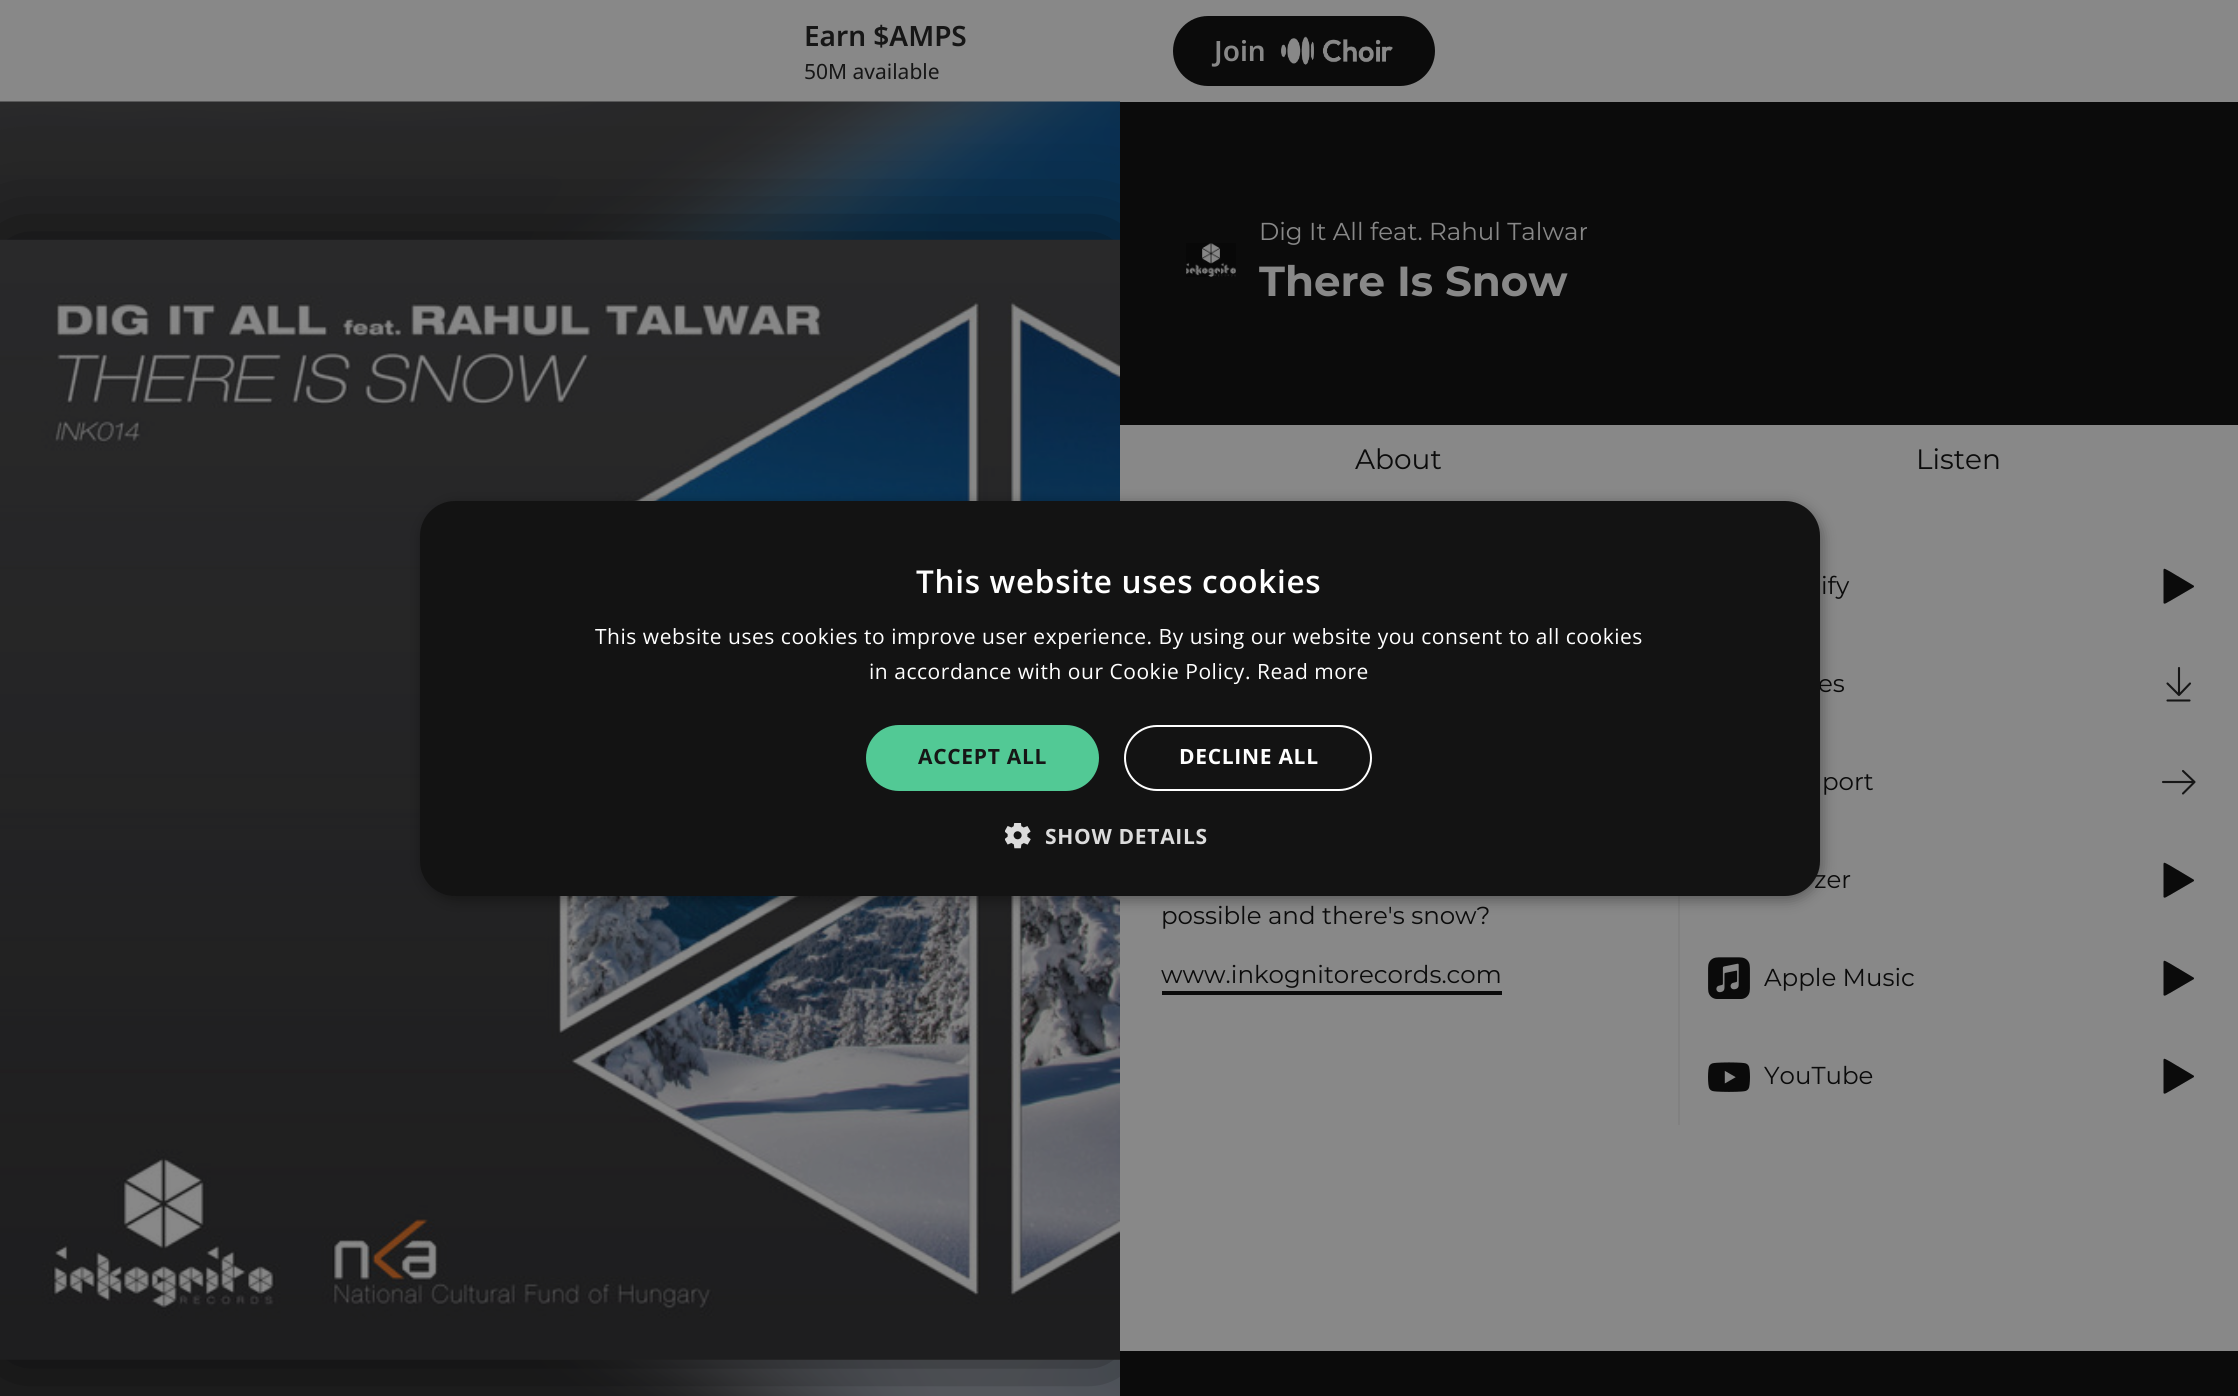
import math
import cairo

surface = cairo.ImageSurface(cairo.FORMAT_RGB24, 2238, 1396)
ctx = cairo.Context(surface)
options = cairo.FontOptions()
options.set_hint_metrics(cairo.HINT_METRICS_OFF)
options.set_hint_style(cairo.HINT_STYLE_NONE)
ctx.set_font_options(options)
ctx.set_miter_limit(4)


def spaced_text(x, y, s, letter, word):
    ctx.move_to(x, y)
    for ch in s:
        ctx.show_text(ch)
        ctx.rel_move_to(letter + word * (ch == ' '), 0)


def round_rect(x, y, w, h, r):
    ctx.new_sub_path()
    for i, (u, v) in enumerate([(x + w - r, y + h - r), (x + r, y + h - r), (x + r, y + r), (x + w - r, y + r)]):
        ctx.arc(u, v, r, i * math.pi / 2, (i + 1) * math.pi / 2)
    ctx.close_path()


def shadow(x, y, w, h, r, blur, alpha):
    ctx.push_group_with_content(cairo.CONTENT_ALPHA)
    ctx.set_operator(cairo.OPERATOR_SOURCE)
    for i in range(15, -16, -2):
        e = blur * i / 6
        if min(w, h) + 2 * e > 0:
            ctx.set_source_rgba(0, 0, 0, alpha * math.erfc((i - 1) / 8.5) / 2)
            round_rect(x - e, y - e, w + 2 * e, h + 2 * e, max(0, min(r + e + blur * .6, min(w, h) / 2 + e)))
            ctx.fill()
    ctx.mask(ctx.pop_group())


def picture(path, x, y, w, h):
    ctx.save()
    ctx.set_source_surface(cairo.ImageSurface.create_from_png(path), x, y)
    ctx.rectangle(x, y, w, h)
    ctx.fill()
    ctx.restore()


ctx.set_source_rgb(0.533, 0.533, 0.533)
ctx.paint()
ctx.select_font_face("Noto Sans SemiBold")
ctx.set_font_size(28)
ctx.set_source_rgb(0.086, 0.086, 0.086)
ctx.move_to(804, 46)
ctx.show_text("Earn $AMPS")
ctx.select_font_face("Noto Sans")
ctx.set_font_size(21)
ctx.move_to(804, 79)
ctx.show_text("50M available")
ctx.set_source_rgb(0.043, 0.043, 0.043)
round_rect(1173, 16, 262, 70, 35)
ctx.fill()
ctx.select_font_face("Noto Sans SemiBold")
ctx.set_font_size(28)
ctx.set_source_rgb(0.533, 0.533, 0.533)
ctx.move_to(1214, 61)
ctx.show_text("Join")
picture("img1.png", 1281, 36, 112, 29)
picture("img3.png", 0, 101, 1120, 1295)
ctx.set_source_rgb(0.043, 0.043, 0.043)
ctx.rectangle(1120, 102, 1118, 323)
ctx.fill()
picture("img4.png", 1186, 243, 50, 34)
ctx.rectangle(1162, 991, 340, 4)
ctx.fill()
ctx.rectangle(1120, 1351, 1118, 45)
ctx.fill()
ctx.save()
ctx.rectangle(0, 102, 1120, 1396)
ctx.clip()
ctx.set_source_rgb(0.035, 0.035, 0.035)
shadow(0, 240, 1120, 1120, 0, 52.5, 0.8)
ctx.restore()
picture("img2.png", 0, 239, 1120, 1121)
ctx.select_font_face("Montserrat Thin")
ctx.set_font_size(24.5)
ctx.set_source_rgb(0.533, 0.533, 0.533)
ctx.move_to(1259, 240)
ctx.show_text("Dig It All feat. Rahul Talwar")
ctx.select_font_face("Montserrat", cairo.FONT_SLANT_NORMAL, cairo.FONT_WEIGHT_BOLD)
ctx.set_font_size(42)
ctx.move_to(1259, 296)
ctx.show_text("There Is Snow")
ctx.select_font_face("Montserrat Thin")
ctx.set_font_size(28)
ctx.set_source_rgb(0.043, 0.043, 0.043)
ctx.move_to(1355, 469)
ctx.show_text("About")
ctx.move_to(1916, 469)
ctx.show_text("Listen")
ctx.set_font_size(24.5)
ctx.move_to(1161, 924)
ctx.show_text("possible and there's snow?")
ctx.move_to(1161, 983)
ctx.show_text("www.inkognitorecords.com")
ctx.set_source_rgb(0.506, 0.506, 0.506)
ctx.rectangle(1678, 896, 2, 229)
ctx.fill()
ctx.set_source_rgb(0.043, 0.043, 0.043)
ctx.move_to(1821, 594)
ctx.show_text("ify")
ctx.new_path()
ctx.move_to(2193.5, 585.5)
ctx.line_to(2170, 571.5)
ctx.curve_to(2162.5, 567.5, 2163.5, 567, 2163.5, 575.5)
ctx.line_to(2163.5, 603)
ctx.curve_to(2164.5, 605, 2167.5, 602, 2170, 601)
ctx.line_to(2194, 587)
ctx.curve_to(2194, 586.5, 2194, 585.5, 2193.5, 585.5)
ctx.close_path()
ctx.fill()
ctx.move_to(1818, 692)
ctx.show_text("es")
ctx.new_path()
ctx.move_to(2190, 683.5)
ctx.line_to(2179, 695)
ctx.line_to(2167.5, 683.5)
ctx.move_to(2167.5, 700.5)
ctx.line_to(2189.5, 700.5)
ctx.move_to(2179, 694)
ctx.line_to(2179, 668)
ctx.set_source_rgb(0.086, 0.086, 0.086)
ctx.set_line_width(2.1)
ctx.set_line_cap(cairo.LINE_CAP_ROUND)
ctx.set_line_join(cairo.LINE_JOIN_ROUND)
ctx.stroke()
ctx.set_source_rgb(0.043, 0.043, 0.043)
ctx.move_to(1822, 790)
ctx.show_text("port")
ctx.new_path()
ctx.move_to(2183, 771)
ctx.line_to(2194.5, 782)
ctx.line_to(2183, 793.5)
ctx.move_to(2193.5, 782)
ctx.line_to(2163, 782)
ctx.set_source_rgb(0.086, 0.086, 0.086)
ctx.stroke()
ctx.set_source_rgb(0.043, 0.043, 0.043)
ctx.move_to(1814, 888)
ctx.show_text("zer")
ctx.new_path()
ctx.move_to(2193.5, 879.5)
ctx.line_to(2170, 865.5)
ctx.curve_to(2162.5, 861.5, 2163.5, 861, 2163.5, 869.5)
ctx.line_to(2163.5, 897)
ctx.curve_to(2164.5, 899, 2167.5, 896, 2170, 895)
ctx.line_to(2194, 881)
ctx.curve_to(2194, 880.5, 2194, 879.5, 2193.5, 879.5)
ctx.close_path()
ctx.fill()
picture("img5.png", 1708, 957, 42, 42)
ctx.move_to(1764, 986)
ctx.show_text("Apple Music")
ctx.new_path()
ctx.move_to(2193.5, 977.5)
ctx.line_to(2170, 963.5)
ctx.curve_to(2162.5, 959.5, 2163.5, 959, 2163.5, 967.5)
ctx.line_to(2163.5, 995)
ctx.curve_to(2164.5, 997, 2167.5, 994, 2170, 993)
ctx.line_to(2194, 979)
ctx.curve_to(2194, 978.5, 2194, 977.5, 2193.5, 977.5)
ctx.close_path()
ctx.fill()
picture("img6.png", 1708, 1062, 42, 30)
ctx.move_to(1764, 1084)
ctx.show_text("YouTube")
ctx.new_path()
ctx.move_to(2193.5, 1075.5)
ctx.line_to(2170, 1061.5)
ctx.curve_to(2162.5, 1057.5, 2163.5, 1057, 2163.5, 1065.5)
ctx.line_to(2163.5, 1093)
ctx.curve_to(2164.5, 1095, 2167.5, 1092, 2170, 1091)
ctx.line_to(2194, 1077)
ctx.curve_to(2194, 1076.5, 2194, 1075.5, 2193.5, 1075.5)
ctx.close_path()
ctx.fill()
ctx.set_source_rgb(0, 0, 0)
shadow(422, 504, 1400, 396, 35, 7, 0.35)
ctx.set_source_rgb(0.078, 0.078, 0.078)
round_rect(420, 501, 1400, 395, 35)
ctx.fill()
ctx.select_font_face("Open Sans SemiBold")
ctx.set_font_size(31.5)
ctx.set_source_rgb(1, 1, 1)
spaced_text(916, 593, "This website uses cookies", 0.7, 0)
ctx.select_font_face("Open Sans")
ctx.set_font_size(21)
spaced_text(595, 644, "This website uses cookies to improve user experience. By using our website you consent to all cookies", 0.53, 0)
spaced_text(869, 679, "in accordance with our Cookie Policy. Read more", 0.53, 0)
ctx.set_source_rgb(0.322, 0.788, 0.584)
round_rect(866, 725, 233, 66, 33)
ctx.fill()
ctx.select_font_face("Open Sans", cairo.FONT_SLANT_NORMAL, cairo.FONT_WEIGHT_BOLD)
ctx.set_source_rgb(0.086, 0.086, 0.086)
spaced_text(918, 764, "ACCEPT ALL", 0.7, 0)
round_rect(1125, 726, 246, 64, 32)
ctx.set_source_rgb(1, 1, 1)
ctx.set_line_width(2)
ctx.set_line_cap(cairo.LINE_CAP_BUTT)
ctx.set_line_join(cairo.LINE_JOIN_MITER)
ctx.stroke()
spaced_text(1179, 764, "DECLINE ALL", 0.7, 0)
picture("img7.png", 1005, 823, 26, 26)
ctx.set_source_rgb(0.863, 0.863, 0.863)
spaced_text(1045, 844, "SHOW DETAILS", 0.7, 0)
surface.write_to_png("page.png")
